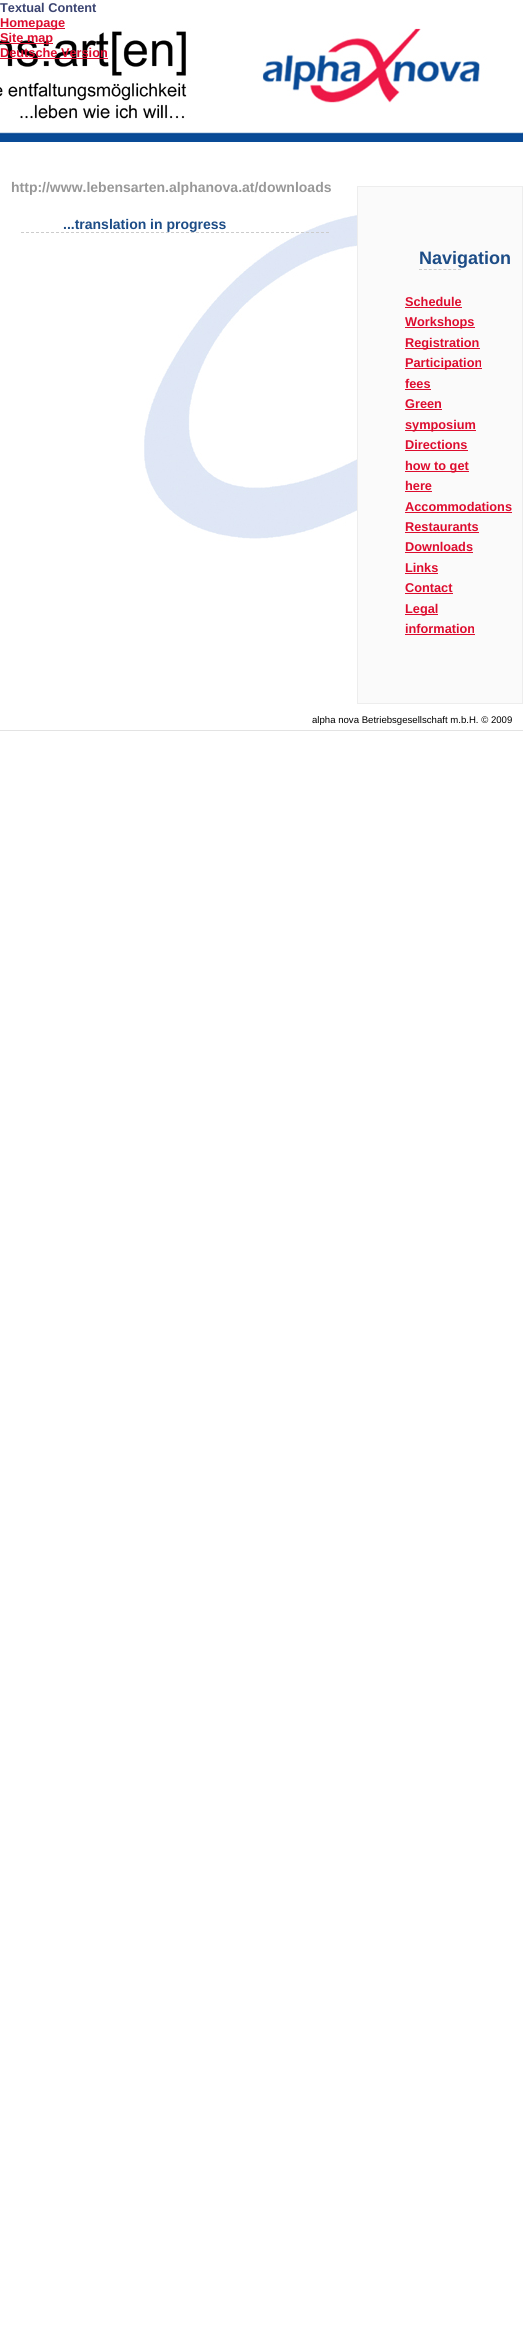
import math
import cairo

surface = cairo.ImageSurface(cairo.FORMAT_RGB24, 523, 2326)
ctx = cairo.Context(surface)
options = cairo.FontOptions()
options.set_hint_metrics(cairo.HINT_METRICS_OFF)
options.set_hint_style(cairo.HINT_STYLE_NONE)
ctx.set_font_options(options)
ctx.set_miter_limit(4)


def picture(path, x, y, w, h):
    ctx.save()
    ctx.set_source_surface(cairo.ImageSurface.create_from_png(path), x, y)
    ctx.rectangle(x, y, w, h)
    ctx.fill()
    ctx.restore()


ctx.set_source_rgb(1, 1, 1)
ctx.paint()
picture("img1.png", 144, 212, 213, 338)
picture("img2.png", 0, 28, 523, 114)
ctx.select_font_face("Liberation Sans", cairo.FONT_SLANT_NORMAL, cairo.FONT_WEIGHT_BOLD)
ctx.set_font_size(12.75)
ctx.set_source_rgb(0.231, 0.267, 0.443)
ctx.move_to(0, 12)
ctx.show_text("Textual Content")
ctx.set_source_rgb(0.867, 0.047, 0.18)
ctx.rectangle(0, 28, 65, 1)
ctx.fill()
ctx.move_to(0, 27)
ctx.show_text("Homepage")
ctx.rectangle(0, 43, 53, 1)
ctx.fill()
ctx.move_to(0, 42)
ctx.show_text("Site map")
ctx.move_to(0, 57)
ctx.show_text("Deutsche Version")
ctx.rectangle(0, 58, 108, 1)
ctx.fill()
ctx.set_font_size(14)
ctx.set_source_rgb(0.596, 0.596, 0.596)
ctx.move_to(11, 192)
ctx.show_text("http://www.lebensarten.alphanova.at/downloads")
ctx.new_path()
ctx.move_to(21, 232.5)
ctx.line_to(329, 232.5)
ctx.set_source_rgb(0.8, 0.8, 0.8)
ctx.set_line_width(1)
ctx.set_dash([3, 2])
ctx.stroke()
ctx.set_source_rgb(0.11, 0.298, 0.525)
ctx.move_to(63, 229)
ctx.show_text("...translation in progress")
ctx.set_source_rgb(0.98, 0.98, 0.98)
ctx.rectangle(357.5, 186.5, 165, 517)
ctx.fill_preserve()
ctx.set_source_rgb(0.929, 0.929, 0.929)
ctx.set_dash([])
ctx.stroke()
ctx.new_path()
ctx.move_to(419, 269.5)
ctx.line_to(461, 269.5)
ctx.set_source_rgb(0.8, 0.8, 0.8)
ctx.set_dash([3, 1.88])
ctx.stroke()
ctx.set_font_size(18)
ctx.set_source_rgb(0.11, 0.298, 0.525)
ctx.move_to(419, 264)
ctx.show_text("Navigation")
ctx.set_font_size(12.75)
ctx.set_source_rgb(0.867, 0.047, 0.18)
ctx.move_to(405, 306)
ctx.show_text("Schedule")
ctx.rectangle(405, 307, 57, 1)
ctx.fill()
ctx.rectangle(405, 327, 70, 1)
ctx.fill()
ctx.move_to(405, 326)
ctx.show_text("Workshops")
ctx.rectangle(405, 348, 75, 1)
ctx.fill()
ctx.move_to(405, 347)
ctx.show_text("Registration")
ctx.rectangle(405, 368, 77, 1)
ctx.fill()
ctx.move_to(405, 367)
ctx.show_text("Participation")
ctx.move_to(405, 388)
ctx.show_text("fees")
ctx.rectangle(405, 389, 26, 1)
ctx.fill()
ctx.move_to(405, 408)
ctx.show_text("Green")
ctx.rectangle(405, 409, 37, 1)
ctx.fill()
ctx.rectangle(405, 430, 71, 1)
ctx.fill()
ctx.move_to(405, 429)
ctx.show_text("symposium")
ctx.move_to(405, 449)
ctx.show_text("Directions")
ctx.rectangle(405, 450, 63, 1)
ctx.fill()
ctx.rectangle(405, 471, 64, 1)
ctx.fill()
ctx.move_to(405, 470)
ctx.show_text("how to get")
ctx.move_to(405, 490)
ctx.show_text("here")
ctx.rectangle(405, 491, 27, 1)
ctx.fill()
ctx.move_to(405, 511)
ctx.show_text("Accommodations")
ctx.rectangle(405, 512, 107, 1)
ctx.fill()
ctx.move_to(405, 531)
ctx.show_text("Restaurants")
ctx.rectangle(405, 532, 74, 1)
ctx.fill()
ctx.move_to(405, 551)
ctx.show_text("Downloads")
ctx.rectangle(405, 552, 68, 1)
ctx.fill()
ctx.move_to(405, 572)
ctx.show_text("Links")
ctx.rectangle(405, 573, 33, 1)
ctx.fill()
ctx.move_to(405, 592)
ctx.show_text("Contact")
ctx.rectangle(405, 593, 48, 1)
ctx.fill()
ctx.rectangle(405, 614, 33, 1)
ctx.fill()
ctx.move_to(405, 613)
ctx.show_text("Legal")
ctx.move_to(405, 633)
ctx.show_text("information")
ctx.rectangle(405, 634, 70, 1)
ctx.fill()
ctx.set_source_rgb(0.89, 0.89, 0.89)
ctx.rectangle(0, 730, 523, 1)
ctx.fill()
ctx.select_font_face("Liberation Sans")
ctx.set_font_size(9.6)
ctx.set_source_rgb(0, 0, 0)
ctx.move_to(312, 723)
ctx.show_text("alpha nova Betriebsgesellschaft m.b.H. © 2009")
surface.write_to_png("page.png")
